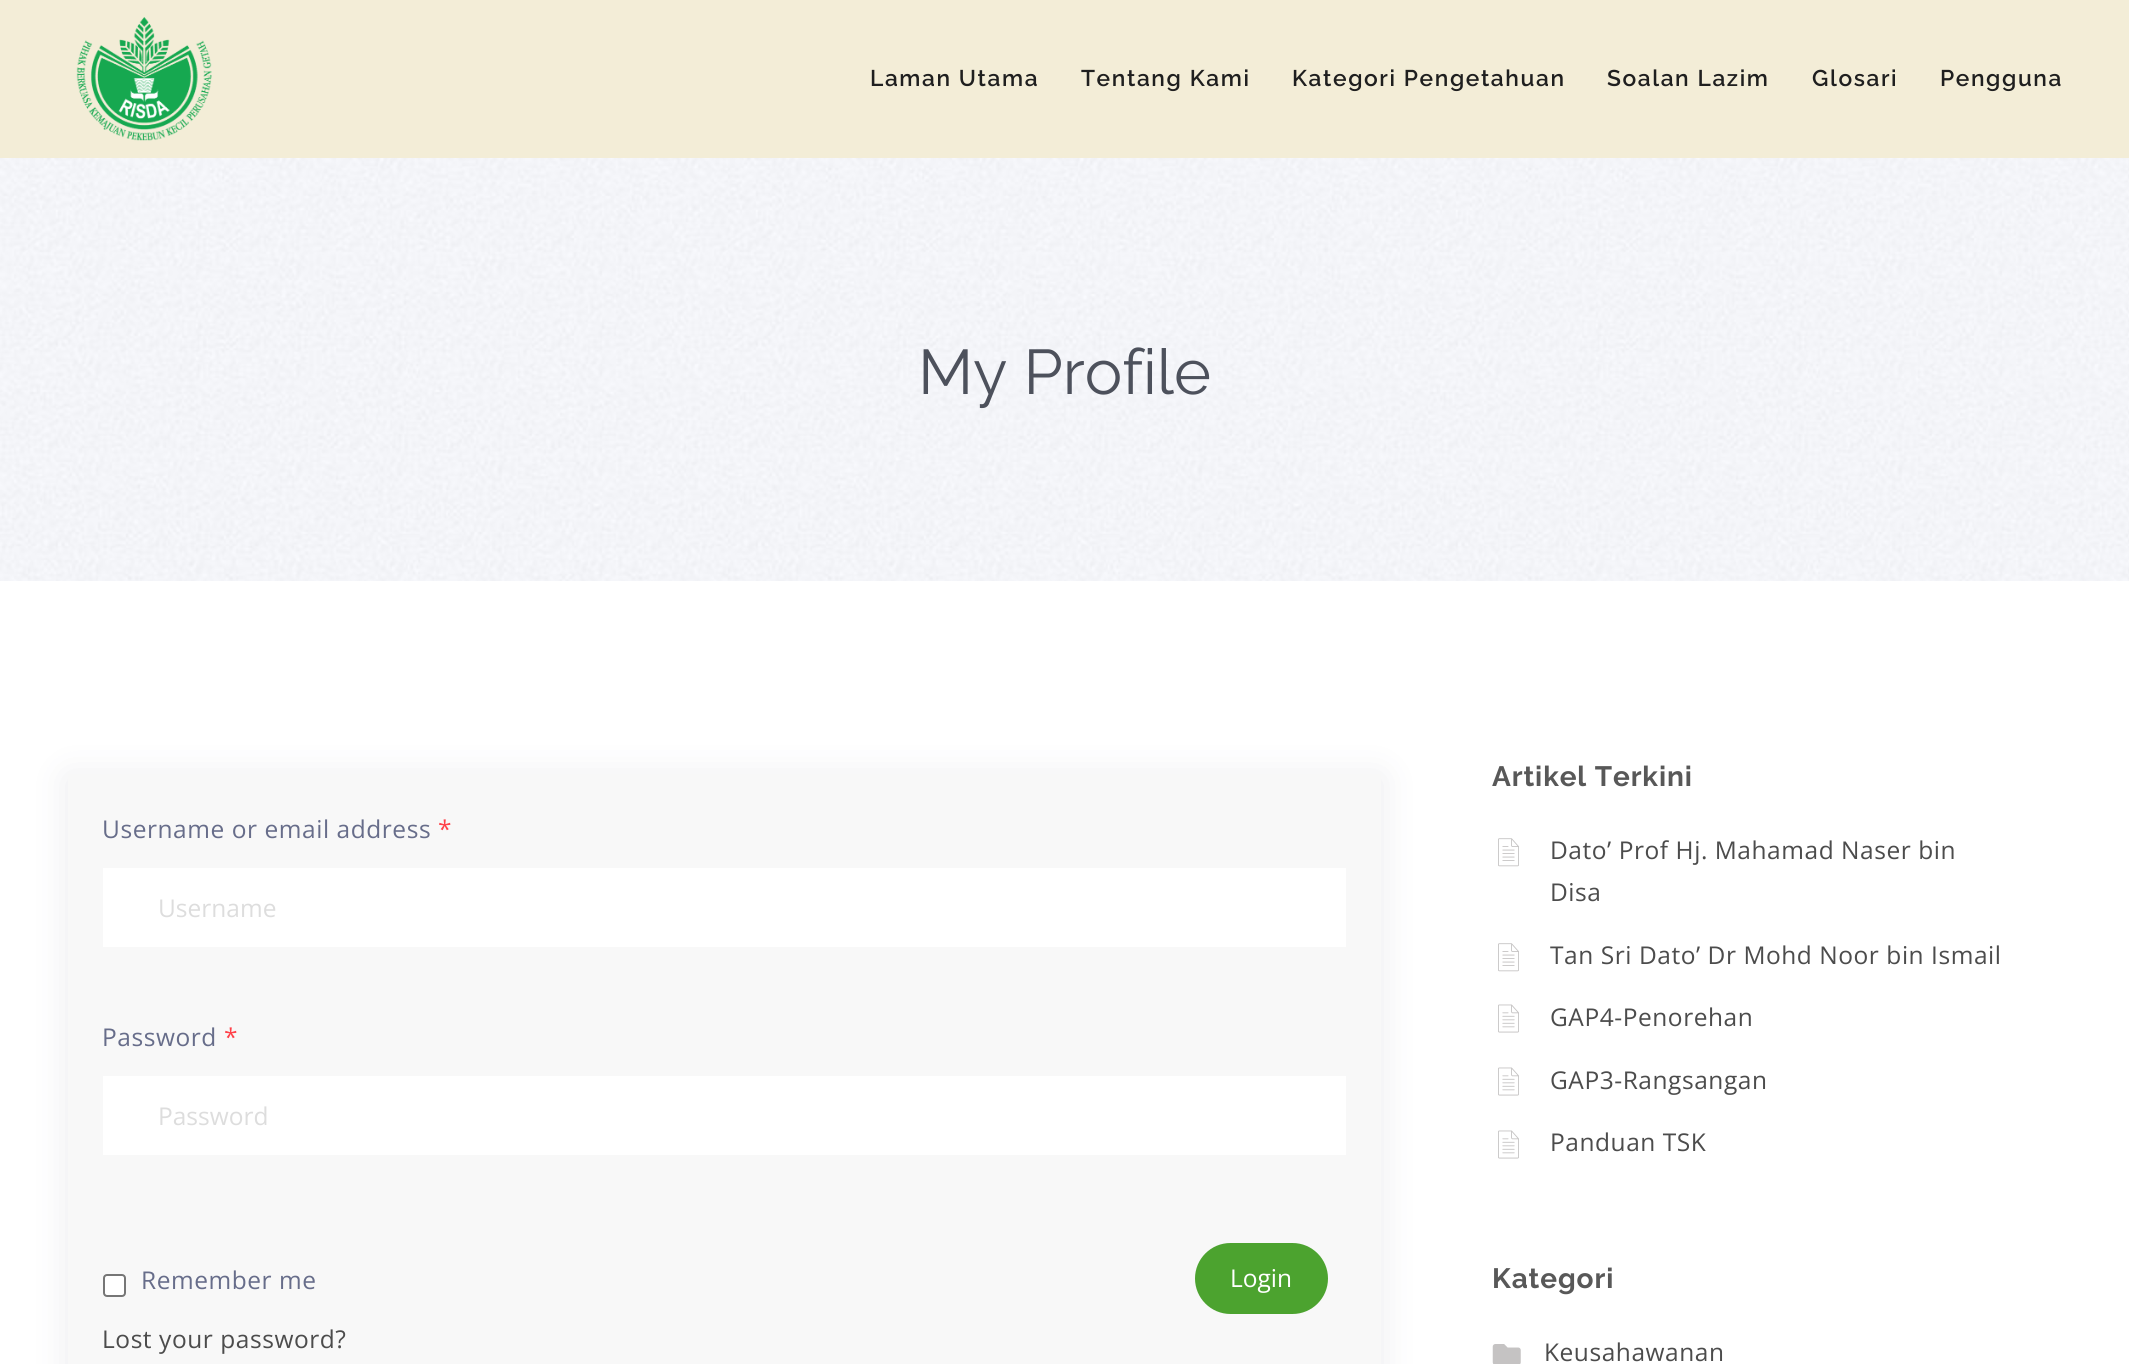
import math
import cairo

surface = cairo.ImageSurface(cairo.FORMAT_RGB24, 2129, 1364)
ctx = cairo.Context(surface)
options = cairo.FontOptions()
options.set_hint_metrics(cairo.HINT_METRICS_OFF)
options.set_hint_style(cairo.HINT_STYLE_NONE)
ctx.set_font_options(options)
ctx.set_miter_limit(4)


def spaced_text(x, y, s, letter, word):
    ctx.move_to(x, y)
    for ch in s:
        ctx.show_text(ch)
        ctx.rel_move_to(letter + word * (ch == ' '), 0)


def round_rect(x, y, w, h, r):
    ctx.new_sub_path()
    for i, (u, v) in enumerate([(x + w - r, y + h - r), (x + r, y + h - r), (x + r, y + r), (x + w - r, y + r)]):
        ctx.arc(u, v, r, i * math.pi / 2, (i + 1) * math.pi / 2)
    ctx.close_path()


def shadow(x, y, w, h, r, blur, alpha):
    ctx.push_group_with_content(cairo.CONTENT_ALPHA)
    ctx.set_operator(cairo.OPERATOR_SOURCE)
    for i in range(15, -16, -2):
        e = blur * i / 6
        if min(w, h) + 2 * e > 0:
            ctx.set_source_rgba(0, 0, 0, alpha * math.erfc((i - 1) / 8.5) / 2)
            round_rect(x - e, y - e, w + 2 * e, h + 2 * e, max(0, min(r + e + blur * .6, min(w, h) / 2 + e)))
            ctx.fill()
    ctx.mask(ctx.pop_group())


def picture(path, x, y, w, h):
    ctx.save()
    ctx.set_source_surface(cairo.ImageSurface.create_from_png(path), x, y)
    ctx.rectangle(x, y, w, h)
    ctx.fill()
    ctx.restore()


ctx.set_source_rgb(1, 1, 1)
ctx.paint()
ctx.set_source_rgb(0.953, 0.929, 0.843)
ctx.rectangle(0, 0, 2129, 158)
ctx.fill()
picture("img1.png", 76, 17, 136, 124)
ctx.select_font_face("Raleway SemiBold")
ctx.set_font_size(22.75)
ctx.set_source_rgb(0.122, 0.122, 0.122)
spaced_text(870, 86, "Laman Utama", 1.6, 0)
spaced_text(1081, 86, "Tentang Kami", 1.6, 0)
spaced_text(1292, 86, "Kategori Pengetahuan", 1.6, 0)
spaced_text(1607, 86, "Soalan Lazim", 1.6, 0)
spaced_text(1812, 86, "Glosari", 1.6, 0)
spaced_text(1940, 86, "Pengguna", 1.6, 0)
picture("img2.png", 0, 158, 2129, 423)
ctx.select_font_face("Raleway")
ctx.set_font_size(63)
ctx.set_source_rgb(0.302, 0.318, 0.361)
ctx.move_to(918, 394)
ctx.show_text("My Profile")
ctx.set_source_rgb(0.176, 0.208, 0.349)
shadow(68, 777, 1313, 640, 0, 17.5, 0.1)
ctx.set_source_rgb(0.969, 0.969, 0.969)
ctx.rectangle(68, 774, 1313, 590)
ctx.fill()
ctx.select_font_face("Open Sans")
ctx.set_font_size(24.5)
ctx.set_source_rgb(0.404, 0.427, 0.541)
spaced_text(102, 838, "Username or email address", 0.55, 0)
ctx.set_source_rgb(1, 0.255, 0.286)
spaced_text(438, 838, "*", 0.55, 0)
ctx.set_source_rgb(1, 1, 1)
ctx.rectangle(103, 868, 1243, 79)
ctx.fill()
ctx.set_source_rgb(0.867, 0.867, 0.867)
ctx.move_to(158, 917)
ctx.show_text("Username")
ctx.set_source_rgb(0.404, 0.427, 0.541)
spaced_text(102, 1046, "Password", 0.55, 0)
ctx.set_source_rgb(1, 0.255, 0.286)
spaced_text(224, 1046, "*", 0.55, 0)
ctx.set_source_rgb(1, 1, 1)
ctx.rectangle(103, 1076, 1243, 79)
ctx.fill()
ctx.set_source_rgb(0.867, 0.867, 0.867)
ctx.move_to(158, 1125)
ctx.show_text("Password")
ctx.set_source_rgb(1, 1, 1)
round_rect(104, 1275, 21, 21, 3)
ctx.fill_preserve()
ctx.set_source_rgb(0.463, 0.463, 0.463)
ctx.stroke()
ctx.set_source_rgb(0.404, 0.427, 0.541)
spaced_text(141, 1289, "Remember me", 0.55, 0)
ctx.set_source_rgb(0.298, 0.639, 0.184)
round_rect(1195, 1243, 133, 71, 35.5)
ctx.fill()
ctx.set_source_rgb(1, 1, 1)
ctx.move_to(1230, 1287)
ctx.show_text("Login")
ctx.set_source_rgb(0.298, 0.298, 0.298)
spaced_text(102, 1348, "Lost your password?", 0.55, 0)
ctx.select_font_face("Raleway", cairo.FONT_SLANT_NORMAL, cairo.FONT_WEIGHT_BOLD)
ctx.set_font_size(28)
ctx.set_source_rgb(0.345, 0.345, 0.345)
spaced_text(1492, 786, "Artikel Terkini", 0.9, 0)
picture("img3.png", 1498, 838, 21, 29)
ctx.select_font_face("Open Sans")
ctx.set_font_size(24.5)
ctx.set_source_rgb(0.298, 0.298, 0.298)
spaced_text(1550, 859, "Dato’ Prof Hj. Mahamad Naser bin", 0.55, 0)
spaced_text(1550, 901, "Disa", 0.55, 0)
picture("img3.png", 1498, 943, 21, 29)
spaced_text(1550, 964, "Tan Sri Dato’ Dr Mohd Noor bin Ismail", 0.55, 0)
picture("img4.png", 1498, 1004, 21, 29)
spaced_text(1550, 1026, "GAP4-Penorehan", 0.55, 0)
picture("img4.png", 1498, 1067, 21, 29)
spaced_text(1550, 1089, "GAP3-Rangsangan", 0.55, 0)
picture("img4.png", 1498, 1130, 21, 29)
spaced_text(1550, 1151, "Panduan TSK", 0.55, 0)
ctx.select_font_face("Raleway", cairo.FONT_SLANT_NORMAL, cairo.FONT_WEIGHT_BOLD)
ctx.set_font_size(28)
ctx.set_source_rgb(0.345, 0.345, 0.345)
spaced_text(1492, 1288, "Kategori", 0.9, 0)
picture("img5.png", 1492, 1344, 29, 20)
ctx.select_font_face("Open Sans")
ctx.set_font_size(24.5)
ctx.set_source_rgb(0.298, 0.298, 0.298)
spaced_text(1544, 1361, "Keusahawanan", 0.55, 0)
surface.write_to_png("page.png")
